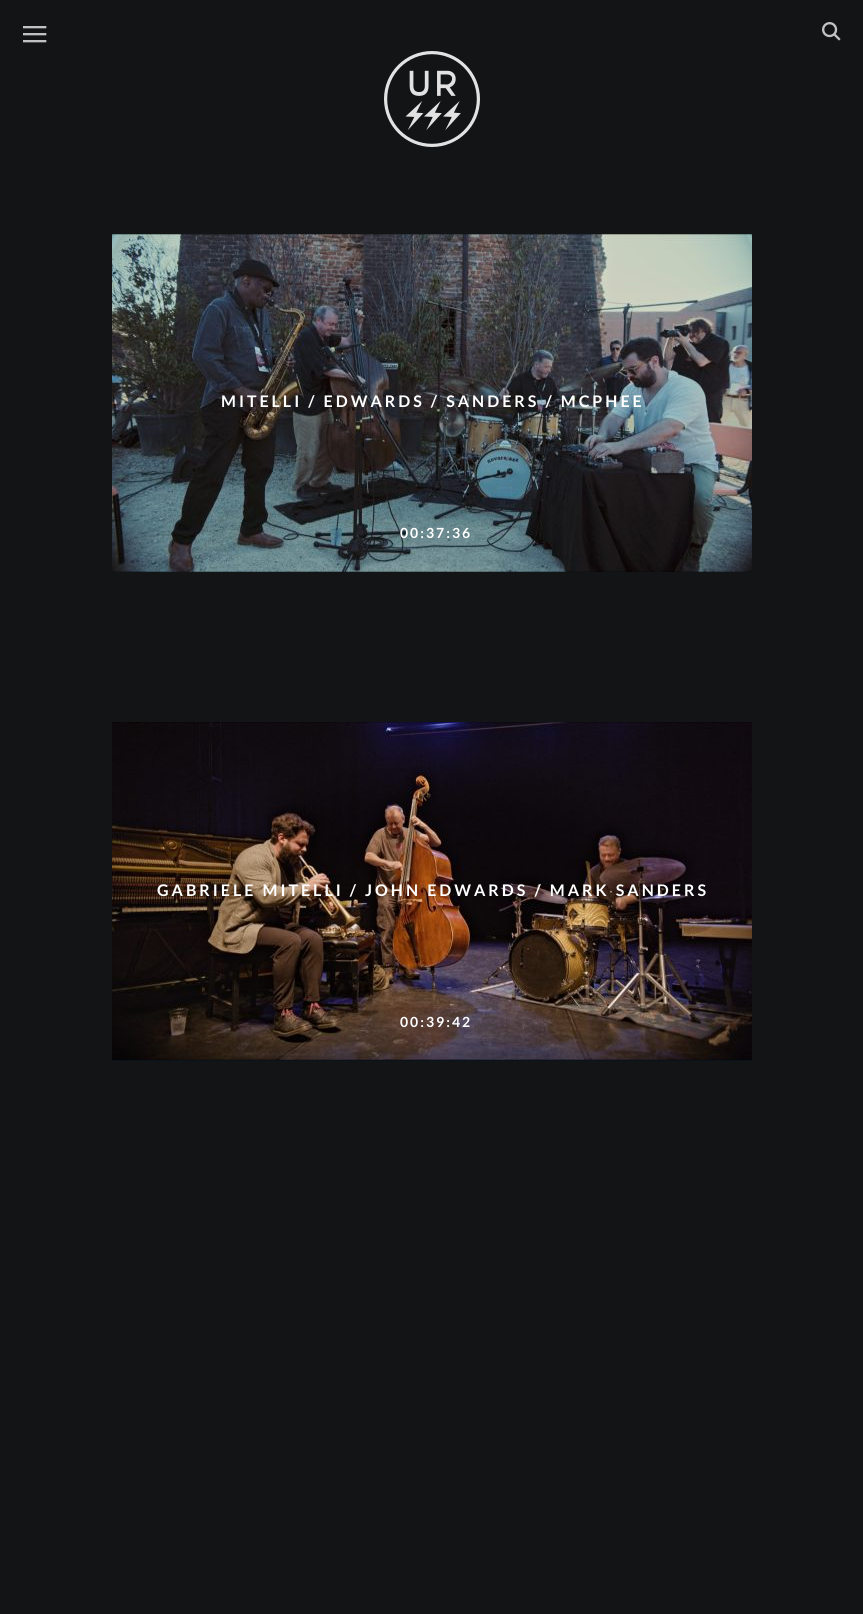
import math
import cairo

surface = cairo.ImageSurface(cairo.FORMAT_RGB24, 863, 1614)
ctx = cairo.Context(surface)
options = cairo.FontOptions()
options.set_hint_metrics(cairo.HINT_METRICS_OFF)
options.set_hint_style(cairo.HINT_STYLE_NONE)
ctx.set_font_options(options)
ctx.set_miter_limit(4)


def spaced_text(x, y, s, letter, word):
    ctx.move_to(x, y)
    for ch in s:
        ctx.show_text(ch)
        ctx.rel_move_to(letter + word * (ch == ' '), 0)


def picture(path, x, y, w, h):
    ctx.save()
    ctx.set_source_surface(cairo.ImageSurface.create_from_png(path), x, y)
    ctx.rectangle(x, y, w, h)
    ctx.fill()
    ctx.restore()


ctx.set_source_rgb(0.075, 0.082, 0.086)
ctx.paint()
picture("img1.png", 23, 26, 24, 17)
picture("img2.png", 822, 22, 19, 19)
picture("img3.png", 384, 51, 96, 96)
picture("img4.png", 112, 234, 640, 338)
ctx.select_font_face("Lato", cairo.FONT_SLANT_NORMAL, cairo.FONT_WEIGHT_BOLD)
ctx.set_font_size(16)
ctx.set_source_rgb(1, 1, 1)
spaced_text(221, 407, "MITELLI / EDWARDS / SANDERS / MCPHEE", 3, 0)
ctx.set_font_size(14)
spaced_text(400, 538, "00:37:36", 2, 0)
ctx.set_source_rgb(0.039, 0.078, 0.114)
ctx.rectangle(112, 1060, 640, 1)
ctx.fill()
picture("img5.png", 112, 722, 640, 338)
ctx.set_font_size(16)
ctx.set_source_rgb(1, 1, 1)
spaced_text(157, 896, "GABRIELE MITELLI / JOHN EDWARDS / MARK SANDERS", 3, 0)
ctx.set_font_size(14)
spaced_text(400, 1027, "00:39:42", 2, 0)
surface.write_to_png("page.png")
